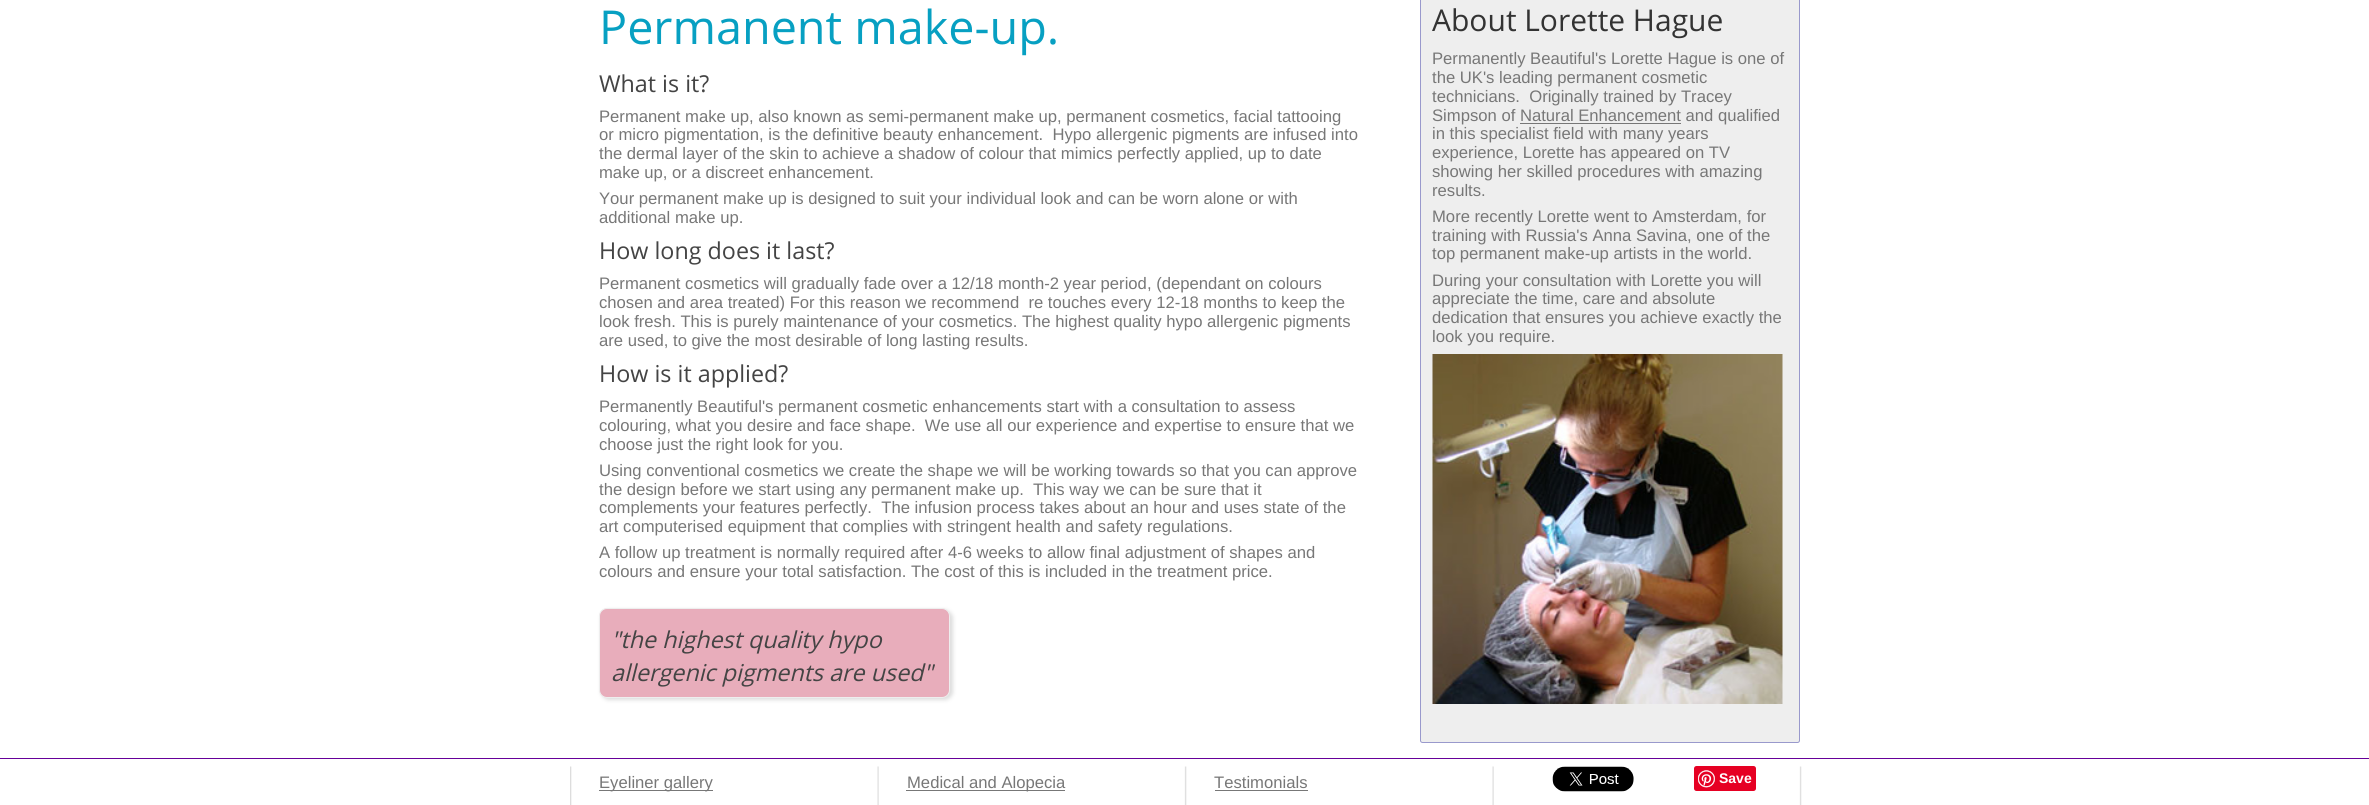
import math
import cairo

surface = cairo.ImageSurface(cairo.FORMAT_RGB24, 2369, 805)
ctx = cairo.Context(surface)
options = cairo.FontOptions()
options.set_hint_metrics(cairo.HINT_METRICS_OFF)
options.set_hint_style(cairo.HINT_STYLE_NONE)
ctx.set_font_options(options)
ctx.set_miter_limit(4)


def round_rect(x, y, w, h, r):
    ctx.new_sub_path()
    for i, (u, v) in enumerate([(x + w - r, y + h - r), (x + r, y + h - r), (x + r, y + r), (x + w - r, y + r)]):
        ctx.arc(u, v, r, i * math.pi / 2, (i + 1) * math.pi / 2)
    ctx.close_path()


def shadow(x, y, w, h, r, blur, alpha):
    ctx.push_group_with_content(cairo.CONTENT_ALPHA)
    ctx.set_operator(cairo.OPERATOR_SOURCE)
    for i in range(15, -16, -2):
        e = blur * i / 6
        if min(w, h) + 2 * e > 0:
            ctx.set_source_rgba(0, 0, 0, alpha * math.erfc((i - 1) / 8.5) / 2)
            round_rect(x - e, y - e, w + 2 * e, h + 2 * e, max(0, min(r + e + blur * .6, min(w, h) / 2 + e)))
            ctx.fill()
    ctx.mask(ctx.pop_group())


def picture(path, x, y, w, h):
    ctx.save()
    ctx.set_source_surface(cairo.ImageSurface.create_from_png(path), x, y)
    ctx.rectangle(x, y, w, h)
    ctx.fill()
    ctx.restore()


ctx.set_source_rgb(1, 1, 1)
ctx.paint()
ctx.set_source_rgb(0.4, 0, 0.6)
ctx.rectangle(0, 758, 2369, 1)
ctx.fill()
ctx.select_font_face("Open Sans")
ctx.set_font_size(46.75)
ctx.set_source_rgb(0.031, 0.627, 0.761)
ctx.move_to(599, 44)
ctx.show_text("Permanent make-up.")
ctx.set_font_size(23.3)
ctx.set_source_rgb(0.267, 0.267, 0.267)
ctx.move_to(599, 92)
ctx.show_text("What is it?")
ctx.select_font_face("Liberation Sans")
ctx.set_font_size(16.65)
ctx.set_source_rgb(0.467, 0.467, 0.467)
ctx.move_to(599, 122)
ctx.show_text("Permanent make up, also known as semi-permanent make up, permanent cosmetics, facial tattooing")
ctx.move_to(599, 140)
ctx.show_text("or micro pigmentation, is the definitive beauty enhancement.  Hypo allergenic pigments are infused into")
ctx.move_to(599, 159)
ctx.show_text("the dermal layer of the skin to achieve a shadow of colour that mimics perfectly applied, up to date")
ctx.move_to(599, 178)
ctx.show_text("make up, or a discreet enhancement.")
ctx.move_to(599, 204)
ctx.show_text("Your permanent make up is designed to suit your individual look and can be worn alone or with")
ctx.move_to(599, 223)
ctx.show_text("additional make up.")
ctx.select_font_face("Open Sans")
ctx.set_font_size(23.3)
ctx.set_source_rgb(0.267, 0.267, 0.267)
ctx.move_to(599, 259)
ctx.show_text("How long does it last?")
ctx.select_font_face("Liberation Sans")
ctx.set_font_size(16.65)
ctx.set_source_rgb(0.467, 0.467, 0.467)
ctx.move_to(599, 289)
ctx.show_text("Permanent cosmetics will gradually fade over a 12/18 month-2 year period, (dependant on colours")
ctx.move_to(599, 308)
ctx.show_text("chosen and area treated) For this reason we recommend  re touches every 12-18 months to keep the")
ctx.move_to(599, 327)
ctx.show_text("look fresh. This is purely maintenance of your cosmetics. The highest quality hypo allergenic pigments")
ctx.move_to(599, 346)
ctx.show_text("are used, to give the most desirable of long lasting results.")
ctx.select_font_face("Open Sans")
ctx.set_font_size(23.3)
ctx.set_source_rgb(0.267, 0.267, 0.267)
ctx.move_to(599, 382)
ctx.show_text("How is it applied?")
ctx.select_font_face("Liberation Sans")
ctx.set_font_size(16.65)
ctx.set_source_rgb(0.467, 0.467, 0.467)
ctx.move_to(599, 412)
ctx.show_text("Permanently Beautiful's permanent cosmetic enhancements start with a consultation to assess")
ctx.move_to(599, 431)
ctx.show_text("colouring, what you desire and face shape.  We use all our experience and expertise to ensure that we")
ctx.move_to(599, 450)
ctx.show_text("choose just the right look for you.")
ctx.move_to(599, 476)
ctx.show_text("Using conventional cosmetics we create the shape we will be working towards so that you can approve")
ctx.move_to(599, 495)
ctx.show_text("the design before we start using any permanent make up.  This way we can be sure that it")
ctx.move_to(599, 513)
ctx.show_text("complements your features perfectly.  The infusion process takes about an hour and uses state of the")
ctx.move_to(599, 532)
ctx.show_text("art computerised equipment that complies with stringent health and safety regulations.")
ctx.move_to(599, 558)
ctx.show_text("A follow up treatment is normally required after 4-6 weeks to allow final adjustment of shapes and")
ctx.move_to(599, 577)
ctx.show_text("colours and ensure your total satisfaction. The cost of this is included in the treatment price.")
ctx.set_source_rgb(0.933, 0.933, 0.933)
round_rect(1420.5, -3.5, 379, 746, 2)
ctx.fill_preserve()
ctx.set_source_rgb(0.6, 0.6, 0.8)
ctx.set_line_width(1)
ctx.stroke()
ctx.select_font_face("Open Sans")
ctx.set_font_size(30)
ctx.set_source_rgb(0.2, 0.2, 0.2)
ctx.move_to(1432, 31)
ctx.show_text("About Lorette Hague")
ctx.select_font_face("Liberation Sans")
ctx.set_font_size(16.65)
ctx.set_source_rgb(0.467, 0.467, 0.467)
ctx.move_to(1432, 64)
ctx.show_text("Permanently Beautiful's Lorette Hague is one of")
ctx.move_to(1432, 83)
ctx.show_text("the UK's leading permanent cosmetic")
ctx.move_to(1432, 102)
ctx.show_text("technicians.  Originally trained by Tracey")
ctx.move_to(1432, 121)
ctx.show_text("Simpson of Natural Enhancement and qualified")
ctx.rectangle(1520, 123, 161, 1)
ctx.fill()
ctx.move_to(1432, 139)
ctx.show_text("in this specialist field with many years")
ctx.move_to(1432, 158)
ctx.show_text("experience, Lorette has appeared on TV")
ctx.move_to(1432, 177)
ctx.show_text("showing her skilled procedures with amazing")
ctx.move_to(1432, 196)
ctx.show_text("results.")
ctx.move_to(1432, 222)
ctx.show_text("More recently Lorette went to Amsterdam, for")
ctx.move_to(1432, 241)
ctx.show_text("training with Russia's Anna Savina, one of the")
ctx.move_to(1432, 259)
ctx.show_text("top permanent make-up artists in the world.")
ctx.move_to(1432, 286)
ctx.show_text("During your consultation with Lorette you will")
ctx.move_to(1432, 304)
ctx.show_text("appreciate the time, care and absolute")
ctx.move_to(1432, 323)
ctx.show_text("dedication that ensures you achieve exactly the")
ctx.move_to(1432, 342)
ctx.show_text("look you require.")
picture("img1.png", 1432, 354, 351, 350)
ctx.set_source_rgb(0.867, 0.867, 0.867)
shadow(601, 610, 352, 90, 8, 2, 1)
ctx.set_source_rgb(0.91, 0.678, 0.733)
round_rect(599.5, 608.5, 350, 89, 7.5)
ctx.fill_preserve()
ctx.set_source_rgb(0.933, 0.933, 0.933)
ctx.stroke()
ctx.select_font_face("Open Sans", cairo.FONT_SLANT_ITALIC)
ctx.set_font_size(23.3)
ctx.set_source_rgb(0.267, 0.267, 0.267)
ctx.move_to(611, 648)
ctx.show_text("\"the highest quality hypo")
ctx.move_to(611, 681)
ctx.show_text("allergenic pigments are used\"")
picture("img2.png", 570, 766, 1232, 39)
ctx.set_source_rgb(0.467, 0.467, 0.467)
ctx.rectangle(599, 790, 114, 1)
ctx.fill()
ctx.select_font_face("Liberation Sans")
ctx.set_font_size(16.65)
ctx.move_to(599, 788)
ctx.show_text("Eyeliner gallery")
ctx.rectangle(906, 790, 159, 1)
ctx.fill()
ctx.move_to(907, 788)
ctx.show_text("Medical and Alopecia")
ctx.move_to(1214, 788)
ctx.show_text("Testimonials")
ctx.rectangle(1215, 790, 93, 1)
ctx.fill()
picture("img3.png", 1552, 766, 82, 26)
ctx.set_source_rgb(0.902, 0, 0.137)
round_rect(1694, 766, 62, 25, 2.5)
ctx.fill()
picture("img4.png", 1698, 770, 17, 18)
ctx.select_font_face("Liberation Sans", cairo.FONT_SLANT_NORMAL, cairo.FONT_WEIGHT_BOLD)
ctx.set_font_size(14)
ctx.set_source_rgb(1, 1, 1)
ctx.move_to(1719, 783)
ctx.show_text("Save")
surface.write_to_png("page.png")
